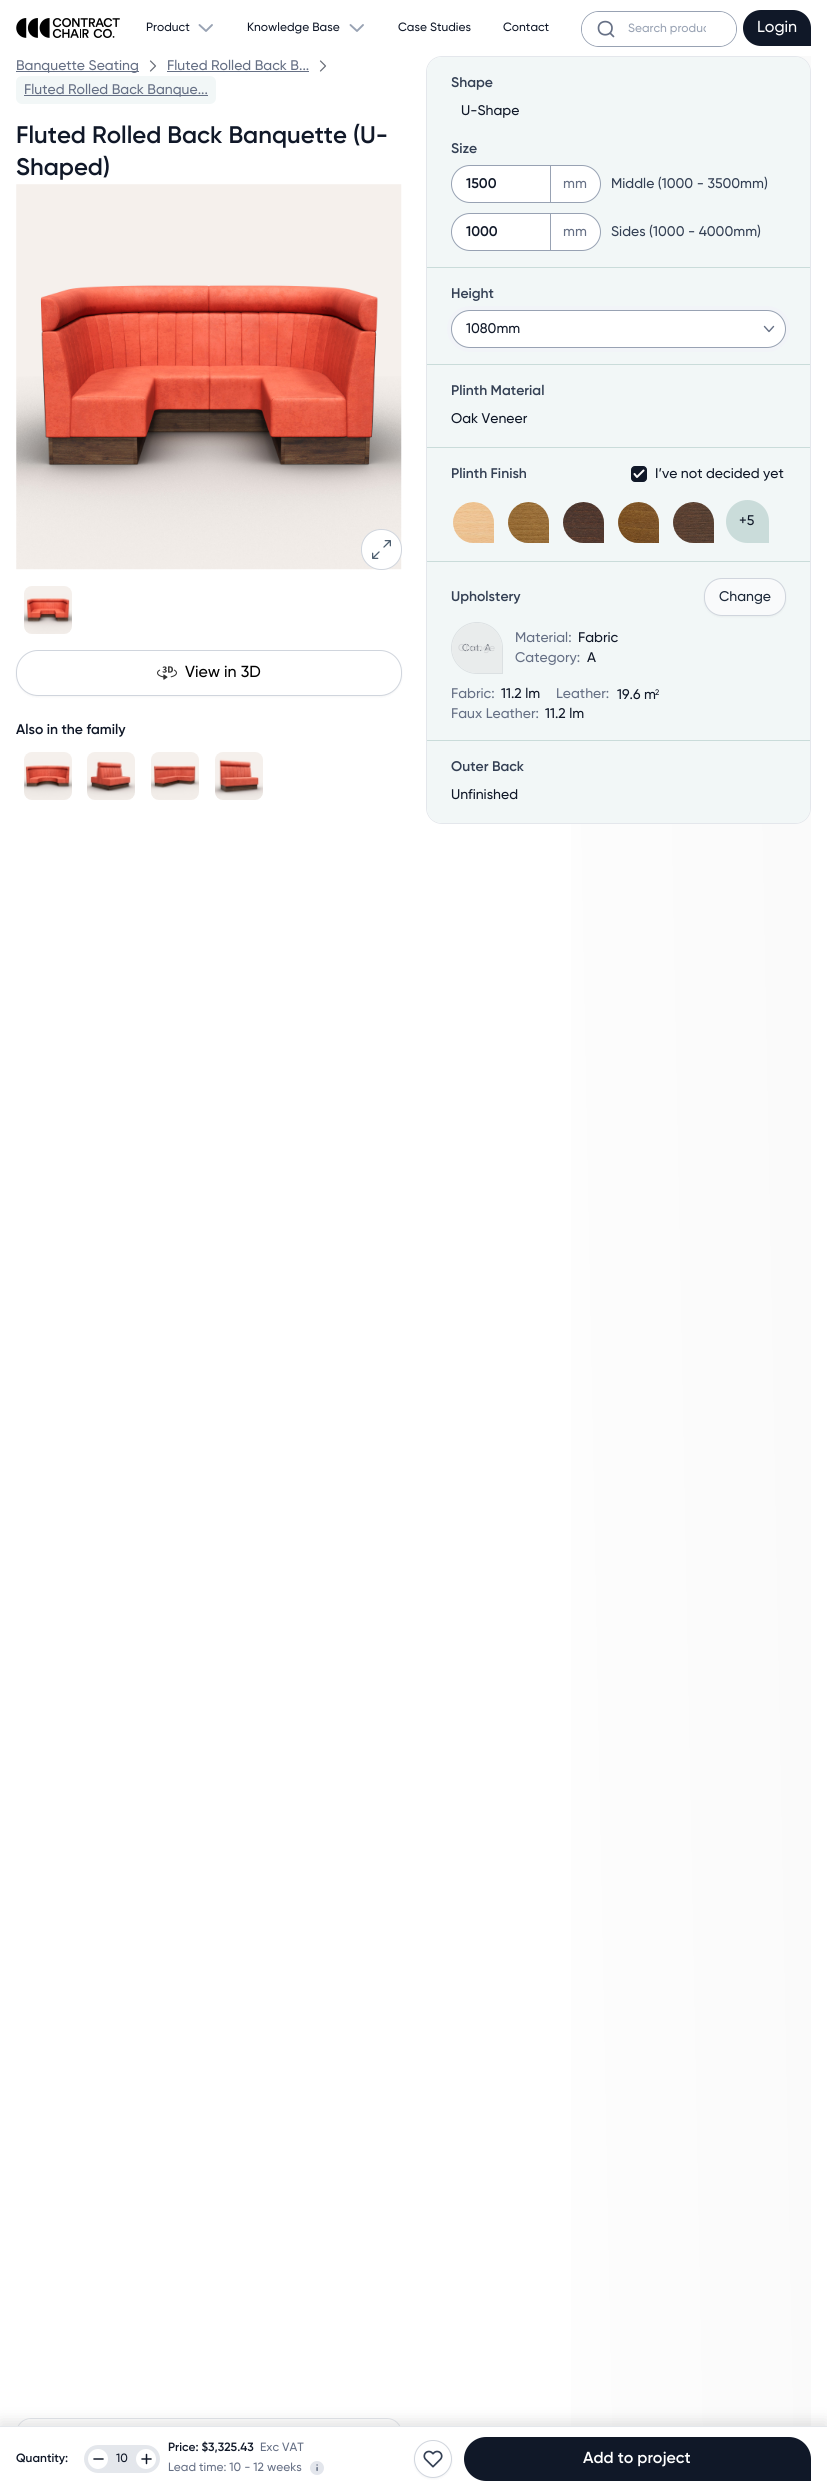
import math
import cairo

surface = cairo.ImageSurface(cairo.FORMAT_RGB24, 827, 2491)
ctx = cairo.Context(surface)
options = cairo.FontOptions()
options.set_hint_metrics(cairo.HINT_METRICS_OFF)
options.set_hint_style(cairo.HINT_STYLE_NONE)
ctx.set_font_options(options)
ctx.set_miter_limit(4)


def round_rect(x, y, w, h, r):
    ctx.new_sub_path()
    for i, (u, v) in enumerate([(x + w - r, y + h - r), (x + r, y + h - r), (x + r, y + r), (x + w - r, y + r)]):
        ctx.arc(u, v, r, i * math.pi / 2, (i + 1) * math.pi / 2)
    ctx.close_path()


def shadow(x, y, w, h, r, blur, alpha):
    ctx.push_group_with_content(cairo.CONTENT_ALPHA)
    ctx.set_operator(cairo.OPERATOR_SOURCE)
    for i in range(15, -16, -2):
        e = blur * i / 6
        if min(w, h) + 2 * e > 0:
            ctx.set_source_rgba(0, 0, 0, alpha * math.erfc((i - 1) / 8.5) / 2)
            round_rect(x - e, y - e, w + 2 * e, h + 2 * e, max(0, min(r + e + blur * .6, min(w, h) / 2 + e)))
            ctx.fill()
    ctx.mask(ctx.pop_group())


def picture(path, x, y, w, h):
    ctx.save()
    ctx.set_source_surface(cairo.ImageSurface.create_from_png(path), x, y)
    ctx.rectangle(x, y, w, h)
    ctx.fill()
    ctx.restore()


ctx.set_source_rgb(1, 1, 1)
ctx.paint()
picture("img1.png", 16, 18, 104, 20)
ctx.select_font_face("Gilroy Medium")
ctx.set_font_size(12)
ctx.set_source_rgb(0.063, 0.094, 0.157)
ctx.move_to(146, 31)
ctx.show_text("Product")
ctx.new_path()
ctx.move_to(199.5, 25)
ctx.line_to(206, 31)
ctx.line_to(212, 25)
ctx.set_source_rgb(0.596, 0.635, 0.702)
ctx.set_line_width(1.9)
ctx.set_line_cap(cairo.LINE_CAP_ROUND)
ctx.set_line_join(cairo.LINE_JOIN_ROUND)
ctx.stroke()
ctx.set_source_rgb(0.063, 0.094, 0.157)
ctx.move_to(247, 31)
ctx.show_text("Knowledge Base")
ctx.new_path()
ctx.move_to(350.5, 25)
ctx.line_to(357, 31)
ctx.line_to(363, 25)
ctx.set_source_rgb(0.596, 0.635, 0.702)
ctx.stroke()
ctx.set_source_rgb(0.063, 0.094, 0.157)
ctx.move_to(398, 31)
ctx.show_text("Case Studies")
ctx.move_to(503, 31)
ctx.show_text("Contact")
round_rect(581.5, 11.5, 155, 35, 17.5)
ctx.set_source_rgb(0.596, 0.635, 0.702)
ctx.set_line_width(1)
ctx.set_line_cap(cairo.LINE_CAP_BUTT)
ctx.set_line_join(cairo.LINE_JOIN_MITER)
ctx.stroke()
ctx.set_source_rgb(1, 1, 1)
round_rect(582, 12, 154, 34, 17)
ctx.fill()
ctx.new_path()
ctx.move_to(613.5, 36.5)
ctx.line_to(610, 33)
ctx.move_to(612, 28)
ctx.curve_to(612, 37, 598.5, 37, 598.5, 28)
ctx.curve_to(598.5, 19.5, 612, 19.5, 612, 28)
ctx.close_path()
ctx.set_source_rgb(0.4, 0.439, 0.522)
ctx.set_line_width(1.7)
ctx.set_line_cap(cairo.LINE_CAP_ROUND)
ctx.set_line_join(cairo.LINE_JOIN_ROUND)
ctx.stroke()
ctx.save()
ctx.rectangle(628, 22, 78, 15)
ctx.clip()
ctx.set_source_rgb(0.596, 0.635, 0.702)
ctx.move_to(628, 32)
ctx.show_text("Search produc")
ctx.restore()
ctx.set_source_rgb(0.063, 0.094, 0.157)
ctx.new_path()
ctx.move_to(761, 10)
ctx.line_to(793, 10)
ctx.curve_to(803, 10, 811, 18, 811, 28)
ctx.line_to(811, 46)
ctx.line_to(761, 46)
ctx.curve_to(751, 46, 743, 38, 743, 28)
ctx.curve_to(743, 18, 751, 10, 761, 10)
ctx.close_path()
ctx.fill()
ctx.set_font_size(16)
ctx.set_source_rgb(1, 1, 1)
ctx.move_to(757, 32)
ctx.show_text("Login")
ctx.set_source_rgb(0.4, 0.439, 0.522)
ctx.rectangle(16, 71, 123, 1)
ctx.fill()
ctx.set_font_size(14)
ctx.move_to(16, 70)
ctx.show_text("Banquette Seating")
ctx.new_path()
ctx.move_to(150.5, 71)
ctx.line_to(155.5, 66)
ctx.line_to(150.5, 61)
ctx.set_source_rgb(0.4, 0.42, 0.459)
ctx.set_line_width(1.2)
ctx.stroke()
ctx.set_source_rgb(0.4, 0.439, 0.522)
ctx.move_to(167, 70)
ctx.show_text("Fluted Rolled Back B...")
ctx.rectangle(167, 71, 142, 1)
ctx.fill()
ctx.new_path()
ctx.move_to(320.5, 71)
ctx.line_to(325.5, 66)
ctx.line_to(320.5, 61)
ctx.set_source_rgb(0.4, 0.42, 0.459)
ctx.stroke()
ctx.set_source_rgb(0.949, 0.965, 0.965)
round_rect(16, 76, 200, 28, 6)
ctx.fill()
ctx.set_source_rgb(0.4, 0.439, 0.522)
ctx.rectangle(24, 95, 184, 1)
ctx.fill()
ctx.move_to(24, 94)
ctx.show_text("Fluted Rolled Back Banque...")
ctx.select_font_face("Gilroy SemiBold")
ctx.set_font_size(24)
ctx.set_source_rgb(0.063, 0.094, 0.157)
ctx.move_to(16, 143)
ctx.show_text("Fluted Rolled Back Banquette (U-")
ctx.move_to(16, 175)
ctx.show_text("Shaped)")
picture("img2.png", 16, 184, 386, 386)
ctx.set_source_rgb(1, 1, 1)
round_rect(361.5, 529.5, 40, 40, 19.5)
ctx.fill_preserve()
ctx.set_source_rgb(0.816, 0.835, 0.867)
ctx.set_line_width(1)
ctx.set_line_cap(cairo.LINE_CAP_BUTT)
ctx.set_line_join(cairo.LINE_JOIN_MITER)
ctx.stroke()
picture("img3.png", 372, 540, 19, 19)
picture("img4.png", 24, 586, 48, 48)
ctx.set_source_rgb(0.063, 0.094, 0.157)
shadow(16, 651, 386, 46, 22, 1, 0.05)
ctx.set_source_rgb(1, 1, 1)
round_rect(16.5, 650.5, 385, 45, 21.5)
ctx.fill_preserve()
ctx.set_source_rgb(0.816, 0.835, 0.867)
ctx.stroke()
picture("img5.png", 157, 666, 20, 14)
ctx.select_font_face("Gilroy Medium")
ctx.set_font_size(16)
ctx.set_source_rgb(0, 0, 0)
ctx.move_to(185, 677)
ctx.show_text("View in 3D")
ctx.select_font_face("Gilroy SemiBold")
ctx.set_font_size(14)
ctx.set_source_rgb(0.063, 0.094, 0.157)
ctx.move_to(16, 734)
ctx.show_text("Also in the family")
picture("img6.png", 24, 752, 48, 48)
picture("img7.png", 87, 752, 48, 48)
picture("img8.png", 151, 752, 48, 48)
picture("img9.png", 215, 752, 48, 48)
gradient = cairo.LinearGradient(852, 2405, 385, 2414)
gradient.add_color_stop_rgba(0.01, 0.98, 0.98, 0.98, 1)
gradient.add_color_stop_rgba(1, 1, 1, 1, 1)
ctx.set_source(gradient)
ctx.rectangle(571, 56, 240, 2370)
ctx.fill()
round_rect(426.5, 56.5, 384, 767, 15.5)
ctx.set_source_rgb(0.894, 0.906, 0.925)
ctx.stroke()
ctx.set_source_rgb(0.792, 0.863, 0.855)
ctx.rectangle(427, 267, 383, 1)
ctx.fill()
ctx.set_source_rgb(0.949, 0.965, 0.965)
ctx.new_path()
ctx.move_to(442, 57)
ctx.line_to(795, 57)
ctx.curve_to(803.5, 57, 810, 63.5, 810, 72)
ctx.line_to(810, 139)
ctx.line_to(427, 139)
ctx.line_to(427, 72)
ctx.curve_to(427, 63.5, 433.5, 57, 442, 57)
ctx.close_path()
ctx.fill()
ctx.set_source_rgb(0.204, 0.251, 0.329)
ctx.move_to(451, 87)
ctx.show_text("Shape")
ctx.select_font_face("Gilroy Medium")
ctx.set_source_rgb(0.063, 0.094, 0.157)
ctx.move_to(461, 115)
ctx.show_text("U-Shape")
ctx.set_source_rgb(0.949, 0.965, 0.965)
ctx.rectangle(427, 139, 383, 128)
ctx.fill()
ctx.select_font_face("Gilroy SemiBold")
ctx.set_source_rgb(0.204, 0.251, 0.329)
ctx.move_to(451, 153)
ctx.show_text("Size")
ctx.set_source_rgb(1, 1, 1)
round_rect(451.5, 165.5, 149, 37, 18.5)
ctx.fill_preserve()
ctx.set_source_rgb(0.596, 0.635, 0.702)
ctx.stroke()
ctx.set_source_rgb(0.063, 0.094, 0.157)
ctx.move_to(466, 188)
ctx.show_text("1500")
ctx.set_source_rgb(0.596, 0.635, 0.702)
ctx.rectangle(550, 165, 1, 38)
ctx.fill()
ctx.select_font_face("Gilroy Medium")
ctx.set_source_rgb(0.4, 0.439, 0.522)
ctx.move_to(563, 188)
ctx.show_text("mm")
ctx.set_source_rgb(0.204, 0.251, 0.329)
ctx.move_to(611, 188)
ctx.show_text("Middle (1000 - 3500mm)")
ctx.set_source_rgb(1, 1, 1)
round_rect(451.5, 213.5, 149, 37, 18.5)
ctx.fill_preserve()
ctx.set_source_rgb(0.596, 0.635, 0.702)
ctx.stroke()
ctx.select_font_face("Gilroy SemiBold")
ctx.set_source_rgb(0.063, 0.094, 0.157)
ctx.move_to(466, 236)
ctx.show_text("1000")
ctx.set_source_rgb(0.596, 0.635, 0.702)
ctx.rectangle(550, 213, 1, 38)
ctx.fill()
ctx.select_font_face("Gilroy Medium")
ctx.set_source_rgb(0.4, 0.439, 0.522)
ctx.move_to(563, 236)
ctx.show_text("mm")
ctx.set_source_rgb(0.204, 0.251, 0.329)
ctx.move_to(611, 236)
ctx.show_text("Sides (1000 - 4000mm)")
ctx.set_source_rgb(0.949, 0.965, 0.965)
ctx.rectangle(427, 268, 383, 96)
ctx.fill()
ctx.set_source_rgb(0.792, 0.863, 0.855)
ctx.rectangle(427, 364, 383, 1)
ctx.fill()
ctx.select_font_face("Gilroy SemiBold")
ctx.set_source_rgb(0.204, 0.251, 0.329)
ctx.move_to(451, 298)
ctx.show_text("Height")
ctx.set_source_rgb(0.063, 0.094, 0.157)
shadow(451, 311, 335, 38, 19, 1, 0.05)
round_rect(449, 308, 339, 42, 21)
ctx.set_source_rgb(0.949, 0.957, 0.969)
ctx.set_line_width(4)
ctx.stroke()
ctx.set_source_rgb(1, 1, 1)
round_rect(451.5, 310.5, 334, 37, 18.5)
ctx.fill_preserve()
ctx.set_source_rgb(0.596, 0.635, 0.702)
ctx.set_line_width(1)
ctx.stroke()
ctx.select_font_face("Gilroy Medium")
ctx.set_source_rgb(0.063, 0.094, 0.157)
ctx.move_to(466, 333)
ctx.show_text("1080mm")
ctx.new_path()
ctx.move_to(764.5, 326.5)
ctx.line_to(769, 331.5)
ctx.line_to(773.5, 326.5)
ctx.set_source_rgb(0.4, 0.439, 0.522)
ctx.set_line_width(1.4)
ctx.set_line_cap(cairo.LINE_CAP_ROUND)
ctx.set_line_join(cairo.LINE_JOIN_ROUND)
ctx.stroke()
ctx.set_source_rgb(0.949, 0.965, 0.965)
ctx.rectangle(427, 365, 383, 82)
ctx.fill()
ctx.set_source_rgb(0.792, 0.863, 0.855)
ctx.rectangle(427, 447, 383, 1)
ctx.fill()
ctx.select_font_face("Gilroy SemiBold")
ctx.set_source_rgb(0.204, 0.251, 0.329)
ctx.move_to(451, 395)
ctx.show_text("Plinth Material")
ctx.select_font_face("Gilroy Medium")
ctx.set_source_rgb(0.063, 0.094, 0.157)
ctx.move_to(451, 423)
ctx.show_text("Oak Veneer")
ctx.set_source_rgb(0.949, 0.965, 0.965)
ctx.rectangle(427, 448, 383, 113)
ctx.fill()
ctx.set_source_rgb(0.792, 0.863, 0.855)
ctx.rectangle(427, 561, 383, 1)
ctx.fill()
ctx.select_font_face("Gilroy SemiBold")
ctx.set_source_rgb(0.204, 0.251, 0.329)
ctx.move_to(451, 478)
ctx.show_text("Plinth Finish")
round_rect(631.5, 466.5, 15, 15, 3.5)
ctx.set_source_rgb(0.816, 0.835, 0.867)
ctx.set_line_width(1)
ctx.set_line_cap(cairo.LINE_CAP_BUTT)
ctx.set_line_join(cairo.LINE_JOIN_MITER)
ctx.stroke()
ctx.set_source_rgb(0.063, 0.094, 0.157)
round_rect(631.5, 466.5, 15, 15, 3.5)
ctx.fill_preserve()
ctx.stroke()
ctx.new_path()
ctx.move_to(643.5, 470.5)
ctx.line_to(637, 477)
ctx.line_to(634.5, 474)
ctx.set_source_rgb(1, 1, 1)
ctx.set_line_width(2)
ctx.set_line_cap(cairo.LINE_CAP_ROUND)
ctx.set_line_join(cairo.LINE_JOIN_ROUND)
ctx.stroke()
ctx.select_font_face("Gilroy Medium")
ctx.set_source_rgb(0.063, 0.094, 0.157)
ctx.move_to(655, 478)
ctx.show_text("I’ve not decided yet")
picture("img10.png", 453, 502, 41, 41)
picture("img11.png", 508, 502, 41, 41)
picture("img12.png", 563, 502, 41, 41)
picture("img13.png", 618, 502, 41, 41)
picture("img14.png", 673, 502, 41, 41)
ctx.set_source_rgb(0.792, 0.863, 0.855)
ctx.new_path()
ctx.move_to(747.5, 500)
ctx.curve_to(759.5, 500, 769, 509.5, 769, 521.5)
ctx.line_to(769, 543)
ctx.line_to(747.5, 543)
ctx.curve_to(735.5, 543, 726, 533.5, 726, 521.5)
ctx.curve_to(726, 509.5, 735.5, 500, 747.5, 500)
ctx.close_path()
ctx.fill()
ctx.set_source_rgb(0.063, 0.094, 0.157)
ctx.move_to(739, 525)
ctx.show_text("+5")
ctx.set_source_rgb(0.949, 0.965, 0.965)
ctx.rectangle(427, 562, 383, 178)
ctx.fill()
ctx.set_source_rgb(0.792, 0.863, 0.855)
ctx.rectangle(427, 740, 383, 1)
ctx.fill()
ctx.select_font_face("Gilroy SemiBold")
ctx.set_source_rgb(0.204, 0.251, 0.329)
ctx.move_to(451, 601)
ctx.show_text("Upholstery")
ctx.set_source_rgb(0.063, 0.094, 0.157)
shadow(704, 579, 82, 38, 18, 1, 0.05)
ctx.set_source_rgb(0.976, 0.98, 0.984)
round_rect(704.5, 578.5, 81, 37, 17.5)
ctx.fill_preserve()
ctx.set_source_rgb(0.816, 0.835, 0.867)
ctx.set_line_width(1)
ctx.set_line_cap(cairo.LINE_CAP_BUTT)
ctx.set_line_join(cairo.LINE_JOIN_MITER)
ctx.stroke()
ctx.select_font_face("Gilroy Medium")
ctx.set_source_rgb(0.114, 0.161, 0.224)
ctx.move_to(719, 601)
ctx.show_text("Change")
ctx.new_path()
ctx.move_to(477, 622.5)
ctx.curve_to(491, 622.5, 502.5, 634, 502.5, 648)
ctx.line_to(502.5, 673.5)
ctx.line_to(477, 673.5)
ctx.curve_to(463, 673.5, 451.5, 662, 451.5, 648)
ctx.curve_to(451.5, 634, 463, 622.5, 477, 622.5)
ctx.close_path()
ctx.set_source_rgb(0.859, 0.878, 0.886)
ctx.stroke()
ctx.set_source_rgb(0.914, 0.922, 0.922)
ctx.new_path()
ctx.move_to(477, 623)
ctx.curve_to(491, 623, 502, 634, 502, 648)
ctx.line_to(502, 673)
ctx.line_to(477, 673)
ctx.curve_to(463, 673, 452, 662, 452, 648)
ctx.curve_to(452, 634, 463, 623, 477, 623)
ctx.close_path()
ctx.fill()
ctx.set_font_size(10)
ctx.set_source_rgb(0.49, 0.51, 0.541)
ctx.move_to(462, 651)
ctx.show_text("Cat. A")
ctx.set_source_rgb(0.831, 0.839, 0.847)
ctx.move_to(458, 651)
ctx.show_text("Change")
ctx.set_font_size(14)
ctx.set_source_rgb(0.4, 0.439, 0.522)
ctx.move_to(515, 642)
ctx.show_text("Material:")
ctx.set_source_rgb(0.063, 0.094, 0.157)
ctx.move_to(578, 642)
ctx.show_text("Fabric")
ctx.set_source_rgb(0.4, 0.439, 0.522)
ctx.move_to(515, 662)
ctx.show_text("Category:")
ctx.set_source_rgb(0.063, 0.094, 0.157)
ctx.move_to(587, 662)
ctx.show_text("A")
ctx.set_source_rgb(0.4, 0.439, 0.522)
ctx.move_to(451, 698)
ctx.show_text("Fabric:")
ctx.set_source_rgb(0.063, 0.094, 0.157)
ctx.move_to(501, 698)
ctx.show_text("11.2 lm")
ctx.set_source_rgb(0.4, 0.439, 0.522)
ctx.move_to(556, 698)
ctx.show_text("Leather:")
ctx.set_source_rgb(0.063, 0.094, 0.157)
ctx.move_to(617, 699)
ctx.show_text("19.6 m")
ctx.set_font_size(8)
ctx.move_to(655, 695)
ctx.show_text("2")
ctx.set_font_size(14)
ctx.set_source_rgb(0.4, 0.439, 0.522)
ctx.move_to(451, 718)
ctx.show_text("Faux Leather:")
ctx.set_source_rgb(0.063, 0.094, 0.157)
ctx.move_to(545, 718)
ctx.show_text("11.2 lm")
ctx.set_source_rgb(0.949, 0.965, 0.965)
ctx.new_path()
ctx.move_to(427, 741)
ctx.line_to(810, 741)
ctx.line_to(810, 808)
ctx.curve_to(810, 816.5, 803.5, 823, 795, 823)
ctx.line_to(442, 823)
ctx.curve_to(433.5, 823, 427, 816.5, 427, 808)
ctx.close_path()
ctx.fill()
ctx.select_font_face("Gilroy SemiBold")
ctx.set_source_rgb(0.204, 0.251, 0.329)
ctx.move_to(451, 771)
ctx.show_text("Outer Back")
ctx.select_font_face("Gilroy Medium")
ctx.set_source_rgb(0.063, 0.094, 0.157)
ctx.move_to(451, 799)
ctx.show_text("Unfinished")
gradient = cairo.LinearGradient(422, 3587, -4.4, 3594)
gradient.add_color_stop_rgba(0.01, 0.98, 0.98, 0.98, 1)
gradient.add_color_stop_rgba(1, 1, 1, 1, 1)
ctx.set_source(gradient)
round_rect(16.5, 2418.5, 385, 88, 14.5)
ctx.fill_preserve()
ctx.set_source_rgb(0.894, 0.906, 0.925)
ctx.stroke()
ctx.set_source_rgb(1, 1, 1)
ctx.new_path()
ctx.move_to(32, 2419)
ctx.line_to(386, 2419)
ctx.curve_to(394.5, 2419, 401, 2425.5, 401, 2434)
ctx.line_to(401, 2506)
ctx.line_to(17, 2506)
ctx.line_to(17, 2434)
ctx.curve_to(17, 2425.5, 23.5, 2419, 32, 2419)
ctx.close_path()
ctx.fill()
ctx.set_source_rgb(0, 0, 0)
shadow(0, 2422, 827, 65, 0, 8, 0.12)
ctx.set_source_rgb(1, 1, 1)
ctx.rectangle(0, 2427, 827, 64)
ctx.fill()
ctx.set_source_rgb(0.894, 0.906, 0.925)
ctx.rectangle(0, 2426, 827, 1)
ctx.fill()
ctx.select_font_face("Gilroy SemiBold")
ctx.set_font_size(12)
ctx.set_source_rgb(0.063, 0.094, 0.157)
ctx.move_to(16, 2462)
ctx.show_text("Quantity:")
ctx.set_source_rgb(0.894, 0.906, 0.925)
round_rect(84, 2445, 76, 28, 14)
ctx.fill()
ctx.set_source_rgb(1, 1, 1)
ctx.arc(98, 2459, 10, 0, 2 * math.pi)
ctx.fill()
ctx.new_path()
ctx.move_to(94, 2459)
ctx.line_to(103, 2459)
ctx.set_source_rgb(0.063, 0.094, 0.157)
ctx.set_line_width(1.5)
ctx.set_line_cap(cairo.LINE_CAP_ROUND)
ctx.set_line_join(cairo.LINE_JOIN_ROUND)
ctx.stroke()
ctx.select_font_face("Gilroy Medium")
ctx.move_to(116, 2462)
ctx.show_text("10")
ctx.set_source_rgb(1, 1, 1)
ctx.new_path()
ctx.arc(146, 2459, 10, 0, 2 * math.pi)
ctx.fill()
ctx.new_path()
ctx.move_to(146.5, 2454.5)
ctx.line_to(146.5, 2463.5)
ctx.move_to(142, 2459)
ctx.line_to(151, 2459)
ctx.set_source_rgb(0.063, 0.094, 0.157)
ctx.stroke()
ctx.select_font_face("Gilroy SemiBold")
ctx.move_to(168, 2451)
ctx.show_text("Price: $3,325.43")
ctx.select_font_face("Gilroy Medium")
ctx.set_source_rgb(0.4, 0.439, 0.522)
ctx.move_to(260, 2451)
ctx.show_text("Exc VAT")
ctx.move_to(168, 2471)
ctx.show_text("Lead time: 10 - 12 weeks")
picture("img15.png", 310, 2461, 14, 14)
ctx.set_source_rgb(0.063, 0.094, 0.157)
shadow(414, 2441, 38, 38, 19, 1, 0.05)
ctx.set_source_rgb(1, 1, 1)
ctx.arc(433, 2459, 18.5, 0, 2 * math.pi)
ctx.fill_preserve()
ctx.set_source_rgb(0.816, 0.835, 0.867)
ctx.set_line_width(1)
ctx.set_line_cap(cairo.LINE_CAP_BUTT)
ctx.set_line_join(cairo.LINE_JOIN_MITER)
ctx.stroke()
picture("img16.png", 423, 2450, 20, 18)
ctx.set_source_rgb(0.063, 0.094, 0.157)
ctx.new_path()
ctx.move_to(486, 2437)
ctx.line_to(789, 2437)
ctx.curve_to(801, 2437, 811, 2447, 811, 2459)
ctx.line_to(811, 2481)
ctx.line_to(486, 2481)
ctx.curve_to(474, 2481, 464, 2471, 464, 2459)
ctx.curve_to(464, 2447, 474, 2437, 486, 2437)
ctx.close_path()
ctx.fill()
ctx.select_font_face("Gilroy SemiBold")
ctx.set_font_size(16)
ctx.set_source_rgb(1, 1, 1)
ctx.move_to(583, 2463)
ctx.show_text("Add to project")
surface.write_to_png("page.png")
